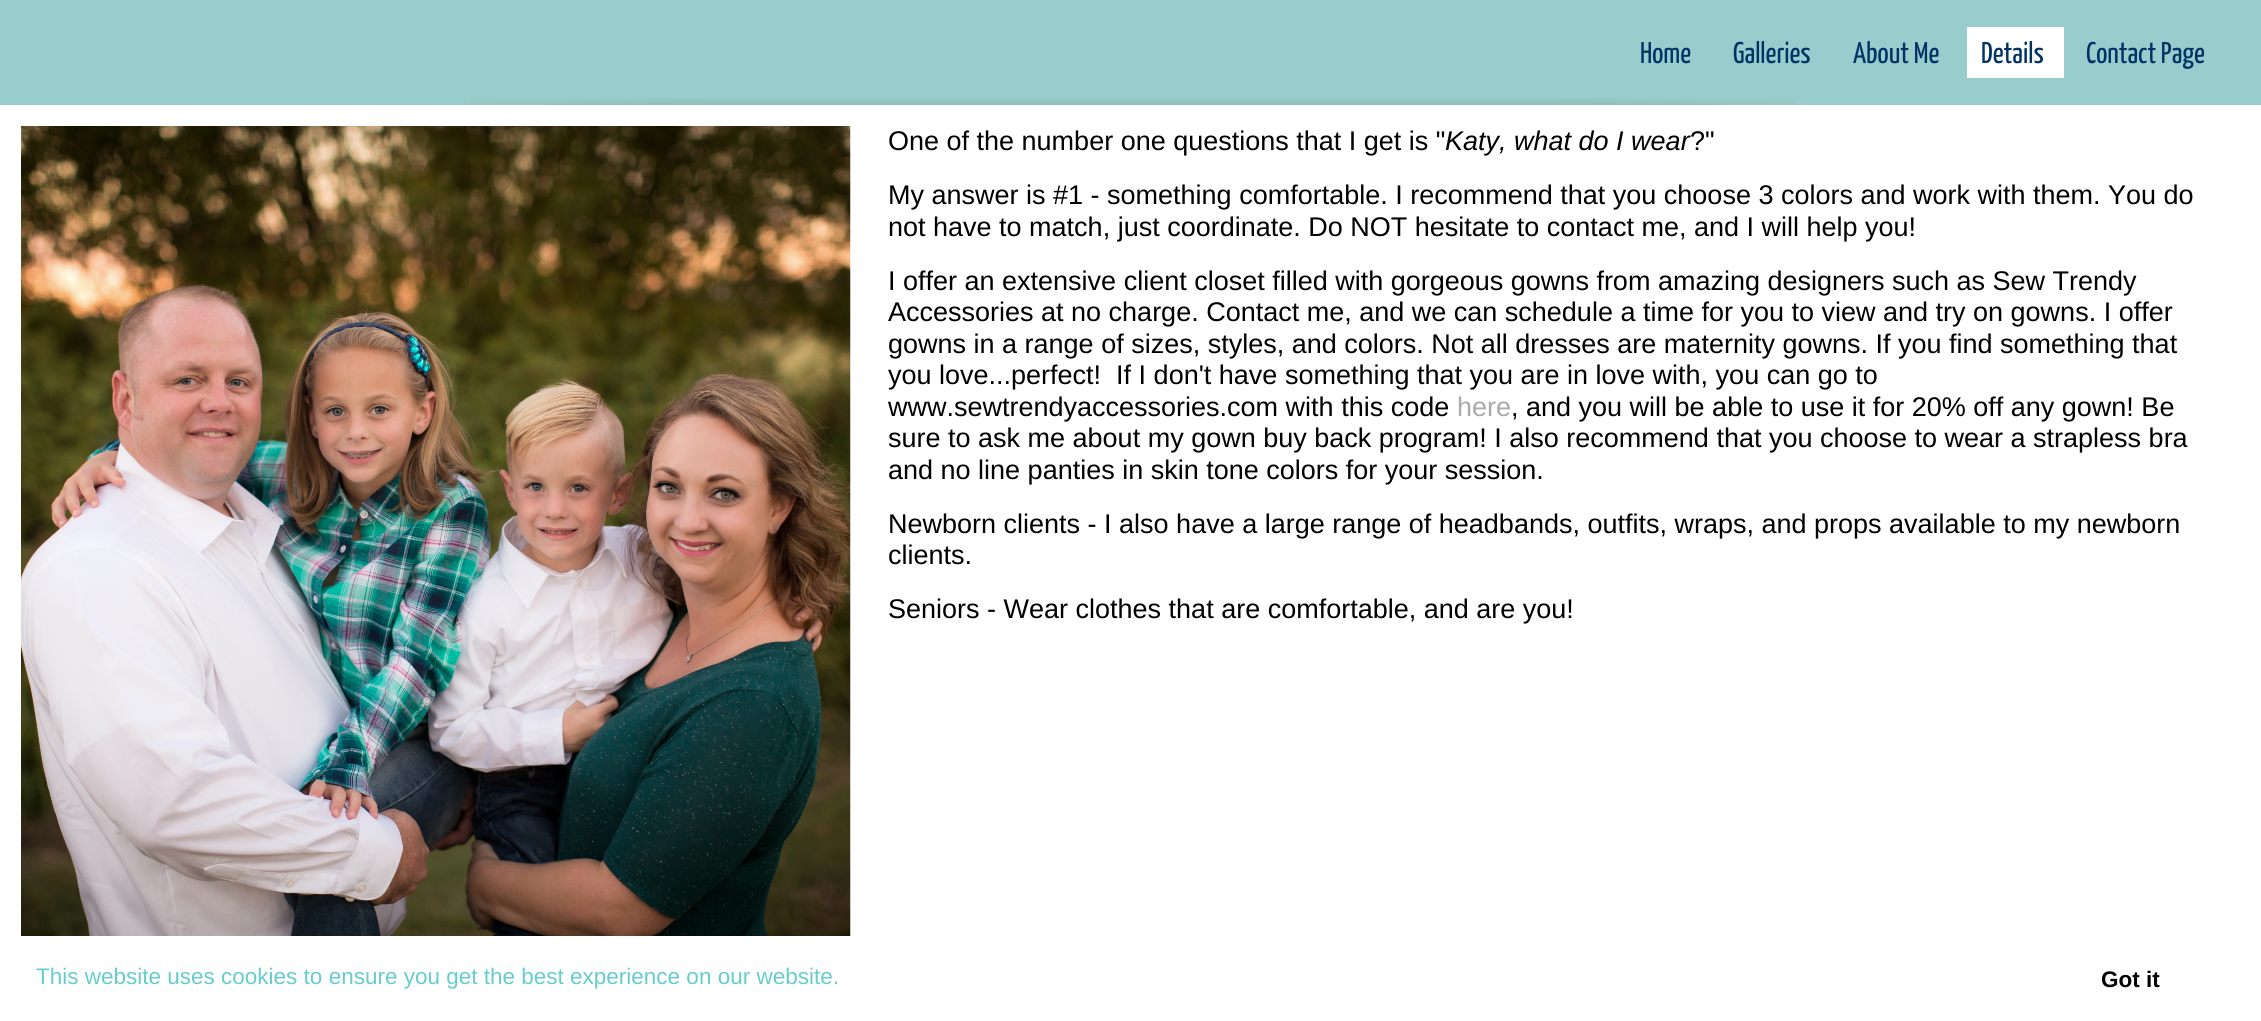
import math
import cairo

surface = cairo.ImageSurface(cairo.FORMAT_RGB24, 2261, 1021)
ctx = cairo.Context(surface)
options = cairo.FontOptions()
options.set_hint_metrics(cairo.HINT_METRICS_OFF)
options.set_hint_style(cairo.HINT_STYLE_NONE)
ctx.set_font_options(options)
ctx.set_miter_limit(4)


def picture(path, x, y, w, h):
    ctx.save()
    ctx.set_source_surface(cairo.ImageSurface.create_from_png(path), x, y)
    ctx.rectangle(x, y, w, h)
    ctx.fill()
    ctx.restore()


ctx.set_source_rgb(0.6, 0.8, 0.8)
ctx.paint()
ctx.select_font_face("Yanone Kaffeesatz")
ctx.set_font_size(30)
ctx.set_source_rgb(0, 0.2, 0.4)
ctx.move_to(1640, 63)
ctx.show_text("Home")
ctx.move_to(1733, 63)
ctx.show_text("Galleries")
ctx.move_to(1853, 63)
ctx.show_text("About Me")
ctx.set_source_rgb(1, 1, 1)
ctx.rectangle(1967, 27, 97, 51)
ctx.fill()
ctx.set_source_rgb(0, 0.2, 0.4)
ctx.move_to(1981, 63)
ctx.show_text("Details")
ctx.move_to(2086, 63)
ctx.show_text("Contact Page")
picture("img1.png", 469, 98, 1327, 7)
ctx.set_source_rgb(1, 1, 1)
ctx.rectangle(0, 105, 2261, 916)
ctx.fill()
picture("img2.png", 21, 126, 830, 810)
ctx.select_font_face("Liberation Sans")
ctx.set_font_size(27)
ctx.set_source_rgb(0, 0, 0)
ctx.move_to(888, 150)
ctx.show_text("One of the number one questions that I get is \"")
ctx.select_font_face("Liberation Sans", cairo.FONT_SLANT_ITALIC)
ctx.move_to(1445, 150)
ctx.show_text("Katy, what do I wear")
ctx.select_font_face("Liberation Sans")
ctx.move_to(1690, 150)
ctx.show_text("?\"")
ctx.move_to(888, 204)
ctx.show_text("My answer is #1 - something comfortable. I recommend that you choose 3 colors and work with them. You do")
ctx.move_to(888, 236)
ctx.show_text("not have to match, just coordinate. Do NOT hesitate to contact me, and I will help you!")
ctx.move_to(888, 290)
ctx.show_text("I offer an extensive client closet filled with gorgeous gowns from amazing designers such as Sew Trendy")
ctx.move_to(888, 321)
ctx.show_text("Accessories at no charge. Contact me, and we can schedule a time for you to view and try on gowns. I offer")
ctx.move_to(888, 353)
ctx.show_text("gowns in a range of sizes, styles, and colors. Not all dresses are maternity gowns. If you find something that")
ctx.move_to(888, 384)
ctx.show_text("you love...perfect!  If I don't have something that you are in love with, you can go to")
ctx.move_to(888, 416)
ctx.show_text("www.sewtrendyaccessories.com with this code")
ctx.set_source_rgb(0.667, 0.667, 0.667)
ctx.move_to(1457, 416)
ctx.show_text("here")
ctx.set_source_rgb(0, 0, 0)
ctx.move_to(1511, 416)
ctx.show_text(", and you will be able to use it for 20% off any gown! Be")
ctx.move_to(888, 447)
ctx.show_text("sure to ask me about my gown buy back program! I also recommend that you choose to wear a strapless bra")
ctx.move_to(888, 479)
ctx.show_text("and no line panties in skin tone colors for your session.")
ctx.move_to(888, 533)
ctx.show_text("Newborn clients - I also have a large range of headbands, outfits, wraps, and props available to my newborn")
ctx.move_to(888, 564)
ctx.show_text("clients.")
ctx.move_to(888, 618)
ctx.show_text("Seniors - Wear clothes that are comfortable, and are you!")
ctx.set_font_size(22.5)
ctx.set_source_rgb(0.4, 0.8, 0.8)
ctx.move_to(36, 984)
ctx.show_text("This website uses cookies to ensure you get the best experience on our website.")
ctx.select_font_face("Liberation Sans", cairo.FONT_SLANT_NORMAL, cairo.FONT_WEIGHT_BOLD)
ctx.set_source_rgb(0, 0, 0)
ctx.move_to(2101, 987)
ctx.show_text("Got it")
surface.write_to_png("page.png")
